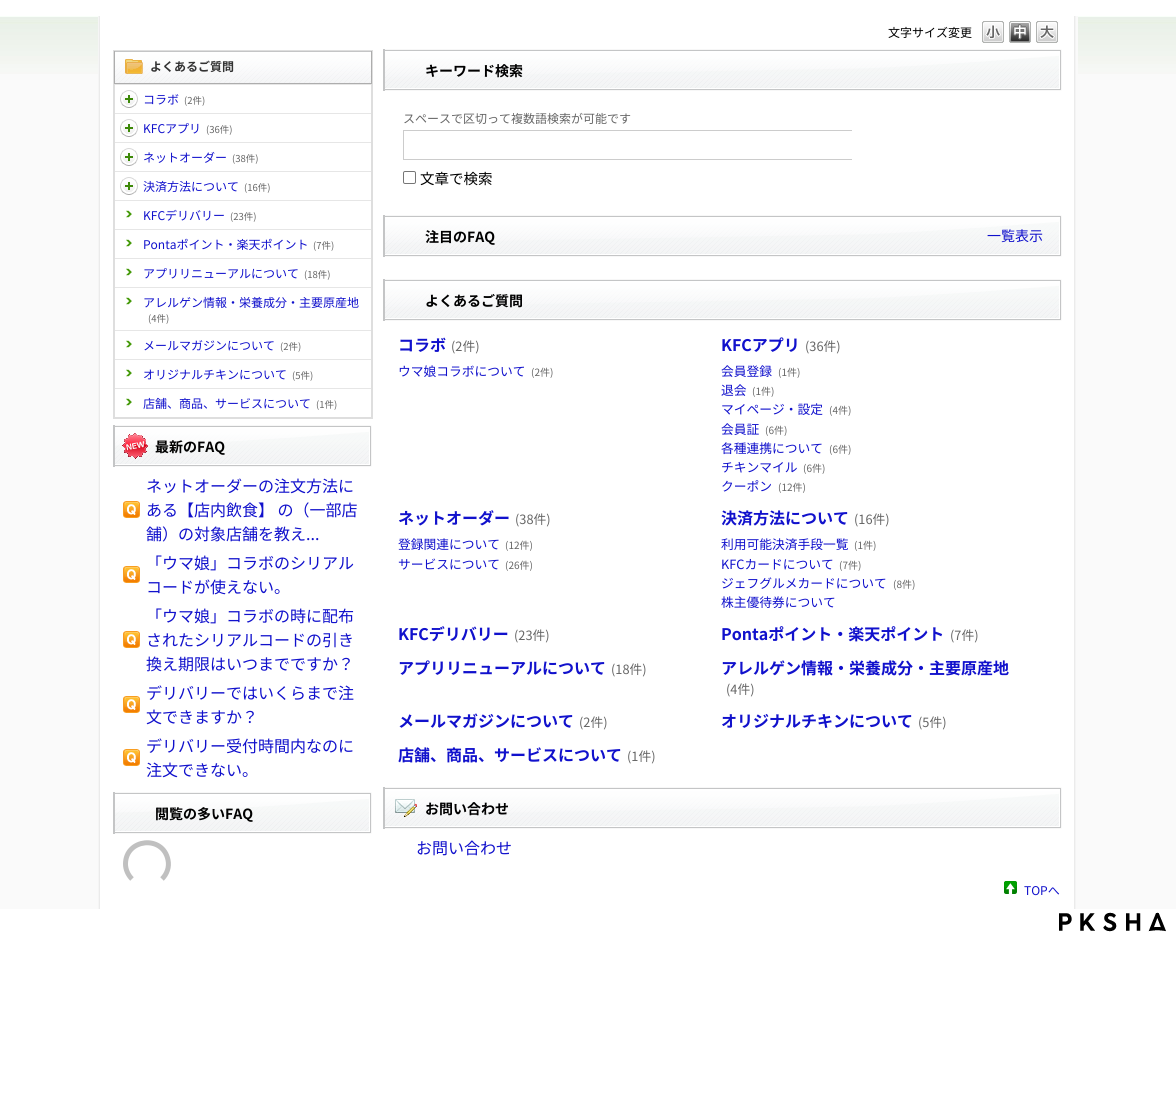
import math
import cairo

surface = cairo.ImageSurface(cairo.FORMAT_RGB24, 1176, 1118)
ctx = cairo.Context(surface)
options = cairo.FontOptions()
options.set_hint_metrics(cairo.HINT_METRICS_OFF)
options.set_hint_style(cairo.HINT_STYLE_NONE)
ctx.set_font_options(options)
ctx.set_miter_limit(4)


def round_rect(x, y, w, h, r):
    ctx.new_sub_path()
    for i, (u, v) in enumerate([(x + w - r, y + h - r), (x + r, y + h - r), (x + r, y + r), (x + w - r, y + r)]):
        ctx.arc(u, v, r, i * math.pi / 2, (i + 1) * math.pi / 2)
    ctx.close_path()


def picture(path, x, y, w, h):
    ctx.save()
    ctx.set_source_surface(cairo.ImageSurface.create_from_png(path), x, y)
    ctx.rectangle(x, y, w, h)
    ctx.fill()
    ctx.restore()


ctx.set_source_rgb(1, 1, 1)
ctx.paint()
ctx.set_source_rgb(0.98, 0.98, 0.98)
ctx.rectangle(0, 74, 1176, 835)
ctx.fill()
picture("img1.png", 0, 16, 1176, 58)
ctx.set_source_rgb(1, 1, 1)
ctx.rectangle(100, 16, 974, 893)
ctx.fill()
picture("img2.png", 1074, 16, 4, 893)
picture("img3.png", 98, 16, 2, 893)
ctx.select_font_face("Noto Sans JP")
ctx.set_font_size(12)
ctx.set_source_rgb(0, 0, 0)
ctx.move_to(888, 37)
ctx.show_text("文字サイズ変更")
picture("img4.png", 982, 21, 22, 22)
picture("img5.png", 1009, 21, 22, 22)
picture("img6.png", 1036, 21, 22, 22)
ctx.set_source_rgb(0.871, 0.871, 0.871)
ctx.rectangle(113, 50, 260, 369)
ctx.fill()
picture("img7.png", 115, 51, 256, 32)
ctx.set_source_rgb(0.678, 0.678, 0.678)
ctx.rectangle(371, 51, 1, 33)
ctx.fill()
ctx.rectangle(114, 83, 258, 1)
ctx.fill()
ctx.rectangle(114, 51, 1, 33)
ctx.fill()
picture("img8.png", 125, 59, 18, 15)
ctx.select_font_face("Noto Sans JP", cairo.FONT_SLANT_NORMAL, cairo.FONT_WEIGHT_BOLD)
ctx.set_source_rgb(0.2, 0.2, 0.2)
ctx.move_to(150, 71)
ctx.show_text("よくあるご質問")
ctx.set_source_rgb(1, 1, 1)
ctx.rectangle(115, 85, 256, 332)
ctx.fill()
ctx.set_source_rgb(0.902, 0.902, 0.902)
ctx.rectangle(115, 84, 256, 1)
ctx.fill()
picture("img9.png", 120, 90, 18, 18)
ctx.select_font_face("Noto Sans JP")
ctx.set_source_rgb(0.067, 0.067, 0.8)
ctx.move_to(143, 104)
ctx.show_text("コラボ")
ctx.set_font_size(9.5)
ctx.set_source_rgb(0.4, 0.4, 0.4)
ctx.move_to(184, 104)
ctx.show_text("(2件)")
ctx.set_source_rgb(0.902, 0.902, 0.902)
ctx.rectangle(115, 113, 256, 1)
ctx.fill()
picture("img9.png", 120, 119, 18, 18)
ctx.set_font_size(12)
ctx.set_source_rgb(0.067, 0.067, 0.8)
ctx.move_to(143, 133)
ctx.show_text("KFCアプリ")
ctx.set_font_size(9.5)
ctx.set_source_rgb(0.4, 0.4, 0.4)
ctx.move_to(206, 133)
ctx.show_text("(36件)")
ctx.set_source_rgb(0.902, 0.902, 0.902)
ctx.rectangle(115, 142, 256, 1)
ctx.fill()
picture("img9.png", 120, 148, 18, 18)
ctx.set_font_size(12)
ctx.set_source_rgb(0.067, 0.067, 0.8)
ctx.move_to(143, 162)
ctx.show_text("ネットオーダー")
ctx.set_font_size(9.5)
ctx.set_source_rgb(0.4, 0.4, 0.4)
ctx.move_to(232, 162)
ctx.show_text("(38件)")
ctx.set_source_rgb(0.902, 0.902, 0.902)
ctx.rectangle(115, 171, 256, 1)
ctx.fill()
picture("img9.png", 120, 177, 18, 18)
ctx.set_font_size(12)
ctx.set_source_rgb(0.067, 0.067, 0.8)
ctx.move_to(143, 191)
ctx.show_text("決済方法について")
ctx.set_font_size(9.5)
ctx.set_source_rgb(0.4, 0.4, 0.4)
ctx.move_to(244, 191)
ctx.show_text("(16件)")
ctx.set_source_rgb(0.902, 0.902, 0.902)
ctx.rectangle(115, 200, 256, 1)
ctx.fill()
picture("img10.png", 126, 210, 6, 8)
ctx.set_font_size(12)
ctx.set_source_rgb(0.067, 0.067, 0.8)
ctx.move_to(143, 220)
ctx.show_text("KFCデリバリー")
ctx.set_font_size(9.5)
ctx.set_source_rgb(0.4, 0.4, 0.4)
ctx.move_to(230, 220)
ctx.show_text("(23件)")
ctx.set_source_rgb(0.902, 0.902, 0.902)
ctx.rectangle(115, 229, 256, 1)
ctx.fill()
picture("img10.png", 126, 239, 6, 8)
ctx.set_font_size(12)
ctx.set_source_rgb(0.067, 0.067, 0.8)
ctx.move_to(143, 249)
ctx.show_text("Pontaポイント・楽天ポイント")
ctx.set_font_size(9.5)
ctx.set_source_rgb(0.4, 0.4, 0.4)
ctx.move_to(313, 249)
ctx.show_text("(7件)")
ctx.set_source_rgb(0.902, 0.902, 0.902)
ctx.rectangle(115, 258, 256, 1)
ctx.fill()
picture("img10.png", 126, 268, 6, 8)
ctx.set_font_size(12)
ctx.set_source_rgb(0.067, 0.067, 0.8)
ctx.move_to(143, 278)
ctx.show_text("アプリリニューアルについて")
ctx.set_font_size(9.5)
ctx.set_source_rgb(0.4, 0.4, 0.4)
ctx.move_to(304, 278)
ctx.show_text("(18件)")
ctx.set_source_rgb(0.902, 0.902, 0.902)
ctx.rectangle(115, 287, 256, 1)
ctx.fill()
picture("img10.png", 126, 297, 6, 8)
ctx.set_font_size(12)
ctx.set_source_rgb(0.067, 0.067, 0.8)
ctx.move_to(143, 307)
ctx.show_text("アレルゲン情報・栄養成分・主要原産地")
ctx.set_font_size(9.5)
ctx.set_source_rgb(0.4, 0.4, 0.4)
ctx.move_to(148, 322)
ctx.show_text("(4件)")
ctx.set_source_rgb(0.902, 0.902, 0.902)
ctx.rectangle(115, 330, 256, 1)
ctx.fill()
picture("img10.png", 126, 340, 6, 8)
ctx.set_font_size(12)
ctx.set_source_rgb(0.067, 0.067, 0.8)
ctx.move_to(143, 350)
ctx.show_text("メールマガジンについて")
ctx.set_font_size(9.5)
ctx.set_source_rgb(0.4, 0.4, 0.4)
ctx.move_to(280, 350)
ctx.show_text("(2件)")
ctx.set_source_rgb(0.902, 0.902, 0.902)
ctx.rectangle(115, 359, 256, 1)
ctx.fill()
picture("img10.png", 126, 369, 6, 8)
ctx.set_font_size(12)
ctx.set_source_rgb(0.067, 0.067, 0.8)
ctx.move_to(143, 379)
ctx.show_text("オリジナルチキンについて")
ctx.set_font_size(9.5)
ctx.set_source_rgb(0.4, 0.4, 0.4)
ctx.move_to(292, 379)
ctx.show_text("(5件)")
ctx.set_source_rgb(0.902, 0.902, 0.902)
ctx.rectangle(115, 388, 256, 1)
ctx.fill()
picture("img10.png", 126, 398, 6, 8)
ctx.set_font_size(12)
ctx.set_source_rgb(0.067, 0.067, 0.8)
ctx.move_to(143, 408)
ctx.show_text("店舗、商品、サービスについて")
ctx.set_font_size(9.5)
ctx.set_source_rgb(0.4, 0.4, 0.4)
ctx.move_to(316, 408)
ctx.show_text("(1件)")
ctx.set_source_rgb(0.769, 0.773, 0.776)
ctx.rectangle(113, 425, 2, 42)
ctx.fill()
picture("img11.png", 115, 425, 257, 42)
picture("img12.png", 122, 433, 26, 26)
ctx.select_font_face("Noto Sans JP", cairo.FONT_SLANT_NORMAL, cairo.FONT_WEIGHT_BOLD)
ctx.set_font_size(14)
ctx.set_source_rgb(0, 0, 0)
ctx.move_to(155, 452)
ctx.show_text("最新のFAQ")
picture("img13.png", 123, 501, 17, 17)
ctx.select_font_face("Noto Sans JP")
ctx.set_font_size(16)
ctx.set_source_rgb(0.067, 0.067, 0.8)
ctx.move_to(146, 492)
ctx.show_text("ネットオーダーの注文方法に")
ctx.move_to(146, 516)
ctx.show_text("ある【店内飲食】 の（一部店")
ctx.move_to(146, 540)
ctx.show_text("舗）の対象店舗を教え...")
picture("img13.png", 123, 566, 17, 17)
ctx.move_to(146, 569)
ctx.show_text("「ウマ娘」コラボのシリアル")
ctx.move_to(146, 593)
ctx.show_text("コードが使えない。")
picture("img13.png", 123, 631, 17, 17)
ctx.move_to(146, 622)
ctx.show_text("「ウマ娘」コラボの時に配布")
ctx.move_to(146, 646)
ctx.show_text("されたシリアルコードの引き")
ctx.move_to(146, 670)
ctx.show_text("換え期限はいつまでですか？")
picture("img13.png", 123, 696, 17, 17)
ctx.move_to(146, 699)
ctx.show_text("デリバリーではいくらまで注")
ctx.move_to(146, 723)
ctx.show_text("文できますか？")
picture("img13.png", 123, 749, 17, 17)
ctx.move_to(146, 752)
ctx.show_text("デリバリー受付時間内なのに")
ctx.move_to(146, 776)
ctx.show_text("注文できない。")
ctx.set_source_rgb(0.769, 0.773, 0.776)
ctx.rectangle(113, 792, 2, 42)
ctx.fill()
picture("img11.png", 115, 792, 257, 42)
ctx.select_font_face("Noto Sans JP", cairo.FONT_SLANT_NORMAL, cairo.FONT_WEIGHT_BOLD)
ctx.set_font_size(14)
ctx.set_source_rgb(0, 0, 0)
ctx.move_to(155, 819)
ctx.show_text("閲覧の多いFAQ")
ctx.new_path()
ctx.move_to(132, 879)
ctx.curve_to(128, 875, 125.5, 869.5, 125.5, 864)
ctx.curve_to(125.5, 838.5, 163, 834.5, 168, 860)
ctx.curve_to(169.5, 867, 167, 874, 162, 879)
ctx.set_source_rgb(0.753, 0.753, 0.753)
ctx.set_line_width(5)
ctx.stroke()
ctx.set_source_rgb(0.769, 0.773, 0.776)
ctx.rectangle(383, 49, 2, 42)
ctx.fill()
picture("img14.png", 385, 49, 677, 42)
ctx.set_source_rgb(0, 0, 0)
ctx.move_to(425, 76)
ctx.show_text("キーワード検索")
ctx.select_font_face("Noto Sans JP")
ctx.set_font_size(12)
ctx.set_source_rgb(0.4, 0.4, 0.4)
ctx.move_to(403, 123)
ctx.show_text("スペースで区切って複数語検索が可能です")
ctx.set_source_rgb(0.8, 0.8, 0.8)
ctx.rectangle(403, 130, 449, 1)
ctx.fill()
ctx.rectangle(403, 159, 449, 1)
ctx.fill()
ctx.rectangle(403, 130, 1, 30)
ctx.fill()
round_rect(403.5, 171.5, 12, 12, 1.5)
ctx.set_source_rgb(0.463, 0.463, 0.463)
ctx.set_line_width(1)
ctx.stroke()
ctx.set_font_size(14.5)
ctx.set_source_rgb(0, 0, 0)
ctx.move_to(420, 184)
ctx.show_text("文章で検索")
ctx.set_source_rgb(0.769, 0.773, 0.776)
ctx.rectangle(383, 215, 2, 42)
ctx.fill()
picture("img14.png", 385, 215, 677, 42)
ctx.select_font_face("Noto Sans JP", cairo.FONT_SLANT_NORMAL, cairo.FONT_WEIGHT_BOLD)
ctx.set_font_size(14)
ctx.set_source_rgb(0, 0, 0)
ctx.move_to(425, 242)
ctx.show_text("注目のFAQ")
ctx.select_font_face("Noto Sans JP")
ctx.set_source_rgb(0.067, 0.067, 0.8)
ctx.move_to(987, 241)
ctx.show_text("一覧表示")
ctx.set_source_rgb(0.769, 0.773, 0.776)
ctx.rectangle(383, 279, 2, 42)
ctx.fill()
picture("img14.png", 385, 279, 677, 42)
ctx.select_font_face("Noto Sans JP", cairo.FONT_SLANT_NORMAL, cairo.FONT_WEIGHT_BOLD)
ctx.set_source_rgb(0, 0, 0)
ctx.move_to(425, 306)
ctx.show_text("よくあるご質問")
ctx.set_font_size(16)
ctx.set_source_rgb(0.067, 0.067, 0.8)
ctx.move_to(398, 351)
ctx.show_text("コラボ")
ctx.select_font_face("Noto Sans JP")
ctx.set_font_size(12.75)
ctx.set_source_rgb(0.4, 0.4, 0.4)
ctx.move_to(451, 351)
ctx.show_text("(2件)")
ctx.set_source_rgb(0.067, 0.067, 0.8)
ctx.move_to(398, 376)
ctx.show_text("ウマ娘コラボについて")
ctx.set_font_size(10)
ctx.set_source_rgb(0.4, 0.4, 0.4)
ctx.move_to(531, 376)
ctx.show_text("(2件)")
ctx.select_font_face("Noto Sans JP", cairo.FONT_SLANT_NORMAL, cairo.FONT_WEIGHT_BOLD)
ctx.set_font_size(16)
ctx.set_source_rgb(0.067, 0.067, 0.8)
ctx.move_to(721, 351)
ctx.show_text("KFCアプリ")
ctx.select_font_face("Noto Sans JP")
ctx.set_font_size(12.75)
ctx.set_source_rgb(0.4, 0.4, 0.4)
ctx.move_to(805, 351)
ctx.show_text("(36件)")
ctx.set_source_rgb(0.067, 0.067, 0.8)
ctx.move_to(721, 376)
ctx.show_text("会員登録")
ctx.set_font_size(10)
ctx.set_source_rgb(0.4, 0.4, 0.4)
ctx.move_to(778, 376)
ctx.show_text("(1件)")
ctx.set_font_size(12.75)
ctx.set_source_rgb(0.067, 0.067, 0.8)
ctx.move_to(721, 395)
ctx.show_text("退会")
ctx.set_font_size(10)
ctx.set_source_rgb(0.4, 0.4, 0.4)
ctx.move_to(752, 395)
ctx.show_text("(1件)")
ctx.set_font_size(12.75)
ctx.set_source_rgb(0.067, 0.067, 0.8)
ctx.move_to(721, 414)
ctx.show_text("マイページ・設定")
ctx.set_font_size(10)
ctx.set_source_rgb(0.4, 0.4, 0.4)
ctx.move_to(829, 414)
ctx.show_text("(4件)")
ctx.set_font_size(12.75)
ctx.set_source_rgb(0.067, 0.067, 0.8)
ctx.move_to(721, 434)
ctx.show_text("会員証")
ctx.set_font_size(10)
ctx.set_source_rgb(0.4, 0.4, 0.4)
ctx.move_to(765, 434)
ctx.show_text("(6件)")
ctx.set_font_size(12.75)
ctx.set_source_rgb(0.067, 0.067, 0.8)
ctx.move_to(721, 453)
ctx.show_text("各種連携について")
ctx.set_font_size(10)
ctx.set_source_rgb(0.4, 0.4, 0.4)
ctx.move_to(829, 453)
ctx.show_text("(6件)")
ctx.set_font_size(12.75)
ctx.set_source_rgb(0.067, 0.067, 0.8)
ctx.move_to(721, 472)
ctx.show_text("チキンマイル")
ctx.set_font_size(10)
ctx.set_source_rgb(0.4, 0.4, 0.4)
ctx.move_to(803, 472)
ctx.show_text("(6件)")
ctx.set_font_size(12.75)
ctx.set_source_rgb(0.067, 0.067, 0.8)
ctx.move_to(721, 491)
ctx.show_text("クーポン")
ctx.set_font_size(10)
ctx.set_source_rgb(0.4, 0.4, 0.4)
ctx.move_to(778, 491)
ctx.show_text("(12件)")
ctx.select_font_face("Noto Sans JP", cairo.FONT_SLANT_NORMAL, cairo.FONT_WEIGHT_BOLD)
ctx.set_font_size(16)
ctx.set_source_rgb(0.067, 0.067, 0.8)
ctx.move_to(398, 524)
ctx.show_text("ネットオーダー")
ctx.select_font_face("Noto Sans JP")
ctx.set_font_size(12.75)
ctx.set_source_rgb(0.4, 0.4, 0.4)
ctx.move_to(515, 524)
ctx.show_text("(38件)")
ctx.set_source_rgb(0.067, 0.067, 0.8)
ctx.move_to(398, 549)
ctx.show_text("登録関連について")
ctx.set_font_size(10)
ctx.set_source_rgb(0.4, 0.4, 0.4)
ctx.move_to(505, 549)
ctx.show_text("(12件)")
ctx.set_font_size(12.75)
ctx.set_source_rgb(0.067, 0.067, 0.8)
ctx.move_to(398, 569)
ctx.show_text("サービスについて")
ctx.set_font_size(10)
ctx.set_source_rgb(0.4, 0.4, 0.4)
ctx.move_to(505, 569)
ctx.show_text("(26件)")
ctx.select_font_face("Noto Sans JP", cairo.FONT_SLANT_NORMAL, cairo.FONT_WEIGHT_BOLD)
ctx.set_font_size(16)
ctx.set_source_rgb(0.067, 0.067, 0.8)
ctx.move_to(721, 524)
ctx.show_text("決済方法について")
ctx.select_font_face("Noto Sans JP")
ctx.set_font_size(12.75)
ctx.set_source_rgb(0.4, 0.4, 0.4)
ctx.move_to(854, 524)
ctx.show_text("(16件)")
ctx.set_source_rgb(0.067, 0.067, 0.8)
ctx.move_to(721, 549)
ctx.show_text("利用可能決済手段一覧")
ctx.set_font_size(10)
ctx.set_source_rgb(0.4, 0.4, 0.4)
ctx.move_to(854, 549)
ctx.show_text("(1件)")
ctx.set_font_size(12.75)
ctx.set_source_rgb(0.067, 0.067, 0.8)
ctx.move_to(721, 569)
ctx.show_text("KFCカードについて")
ctx.set_font_size(10)
ctx.set_source_rgb(0.4, 0.4, 0.4)
ctx.move_to(839, 569)
ctx.show_text("(7件)")
ctx.set_font_size(12.75)
ctx.set_source_rgb(0.067, 0.067, 0.8)
ctx.move_to(721, 588)
ctx.show_text("ジェフグルメカードについて")
ctx.set_font_size(10)
ctx.set_source_rgb(0.4, 0.4, 0.4)
ctx.move_to(893, 588)
ctx.show_text("(8件)")
ctx.set_font_size(12.75)
ctx.set_source_rgb(0.067, 0.067, 0.8)
ctx.move_to(721, 607)
ctx.show_text("株主優待券について")
ctx.select_font_face("Noto Sans JP", cairo.FONT_SLANT_NORMAL, cairo.FONT_WEIGHT_BOLD)
ctx.set_font_size(16)
ctx.move_to(398, 640)
ctx.show_text("KFCデリバリー")
ctx.select_font_face("Noto Sans JP")
ctx.set_font_size(12.75)
ctx.set_source_rgb(0.4, 0.4, 0.4)
ctx.move_to(514, 640)
ctx.show_text("(23件)")
ctx.select_font_face("Noto Sans JP", cairo.FONT_SLANT_NORMAL, cairo.FONT_WEIGHT_BOLD)
ctx.set_font_size(16)
ctx.set_source_rgb(0.067, 0.067, 0.8)
ctx.move_to(721, 640)
ctx.show_text("Pontaポイント・楽天ポイント")
ctx.select_font_face("Noto Sans JP")
ctx.set_font_size(12.75)
ctx.set_source_rgb(0.4, 0.4, 0.4)
ctx.move_to(950, 640)
ctx.show_text("(7件)")
ctx.select_font_face("Noto Sans JP", cairo.FONT_SLANT_NORMAL, cairo.FONT_WEIGHT_BOLD)
ctx.set_font_size(16)
ctx.set_source_rgb(0.067, 0.067, 0.8)
ctx.move_to(398, 674)
ctx.show_text("アプリリニューアルについて")
ctx.select_font_face("Noto Sans JP")
ctx.set_font_size(12.75)
ctx.set_source_rgb(0.4, 0.4, 0.4)
ctx.move_to(611, 674)
ctx.show_text("(18件)")
ctx.select_font_face("Noto Sans JP", cairo.FONT_SLANT_NORMAL, cairo.FONT_WEIGHT_BOLD)
ctx.set_font_size(16)
ctx.set_source_rgb(0.067, 0.067, 0.8)
ctx.move_to(721, 674)
ctx.show_text("アレルゲン情報・栄養成分・主要原産地")
ctx.select_font_face("Noto Sans JP")
ctx.set_font_size(12.75)
ctx.set_source_rgb(0.4, 0.4, 0.4)
ctx.move_to(726, 694)
ctx.show_text("(4件)")
ctx.select_font_face("Noto Sans JP", cairo.FONT_SLANT_NORMAL, cairo.FONT_WEIGHT_BOLD)
ctx.set_font_size(16)
ctx.set_source_rgb(0.067, 0.067, 0.8)
ctx.move_to(398, 727)
ctx.show_text("メールマガジンについて")
ctx.select_font_face("Noto Sans JP")
ctx.set_font_size(12.75)
ctx.set_source_rgb(0.4, 0.4, 0.4)
ctx.move_to(579, 727)
ctx.show_text("(2件)")
ctx.select_font_face("Noto Sans JP", cairo.FONT_SLANT_NORMAL, cairo.FONT_WEIGHT_BOLD)
ctx.set_font_size(16)
ctx.set_source_rgb(0.067, 0.067, 0.8)
ctx.move_to(721, 727)
ctx.show_text("オリジナルチキンについて")
ctx.select_font_face("Noto Sans JP")
ctx.set_font_size(12.75)
ctx.set_source_rgb(0.4, 0.4, 0.4)
ctx.move_to(918, 727)
ctx.show_text("(5件)")
ctx.select_font_face("Noto Sans JP", cairo.FONT_SLANT_NORMAL, cairo.FONT_WEIGHT_BOLD)
ctx.set_font_size(16)
ctx.set_source_rgb(0.067, 0.067, 0.8)
ctx.move_to(398, 761)
ctx.show_text("店舗、商品、サービスについて")
ctx.select_font_face("Noto Sans JP")
ctx.set_font_size(12.75)
ctx.set_source_rgb(0.4, 0.4, 0.4)
ctx.move_to(627, 761)
ctx.show_text("(1件)")
ctx.set_source_rgb(0.769, 0.773, 0.776)
ctx.rectangle(383, 787, 2, 42)
ctx.fill()
picture("img14.png", 385, 787, 677, 42)
picture("img15.png", 395, 799, 22, 18)
ctx.select_font_face("Noto Sans JP", cairo.FONT_SLANT_NORMAL, cairo.FONT_WEIGHT_BOLD)
ctx.set_font_size(14)
ctx.set_source_rgb(0, 0, 0)
ctx.move_to(425, 814)
ctx.show_text("お問い合わせ")
ctx.select_font_face("Noto Sans JP")
ctx.set_font_size(16)
ctx.set_source_rgb(0.067, 0.067, 0.8)
ctx.move_to(416, 854)
ctx.show_text("お問い合わせ")
picture("img16.png", 1004, 881, 13, 13)
ctx.set_font_size(12)
ctx.move_to(1024, 895)
ctx.show_text("TOPへ")
picture("img17.png", 1059, 912, 107, 20)
surface.write_to_png("page.png")
